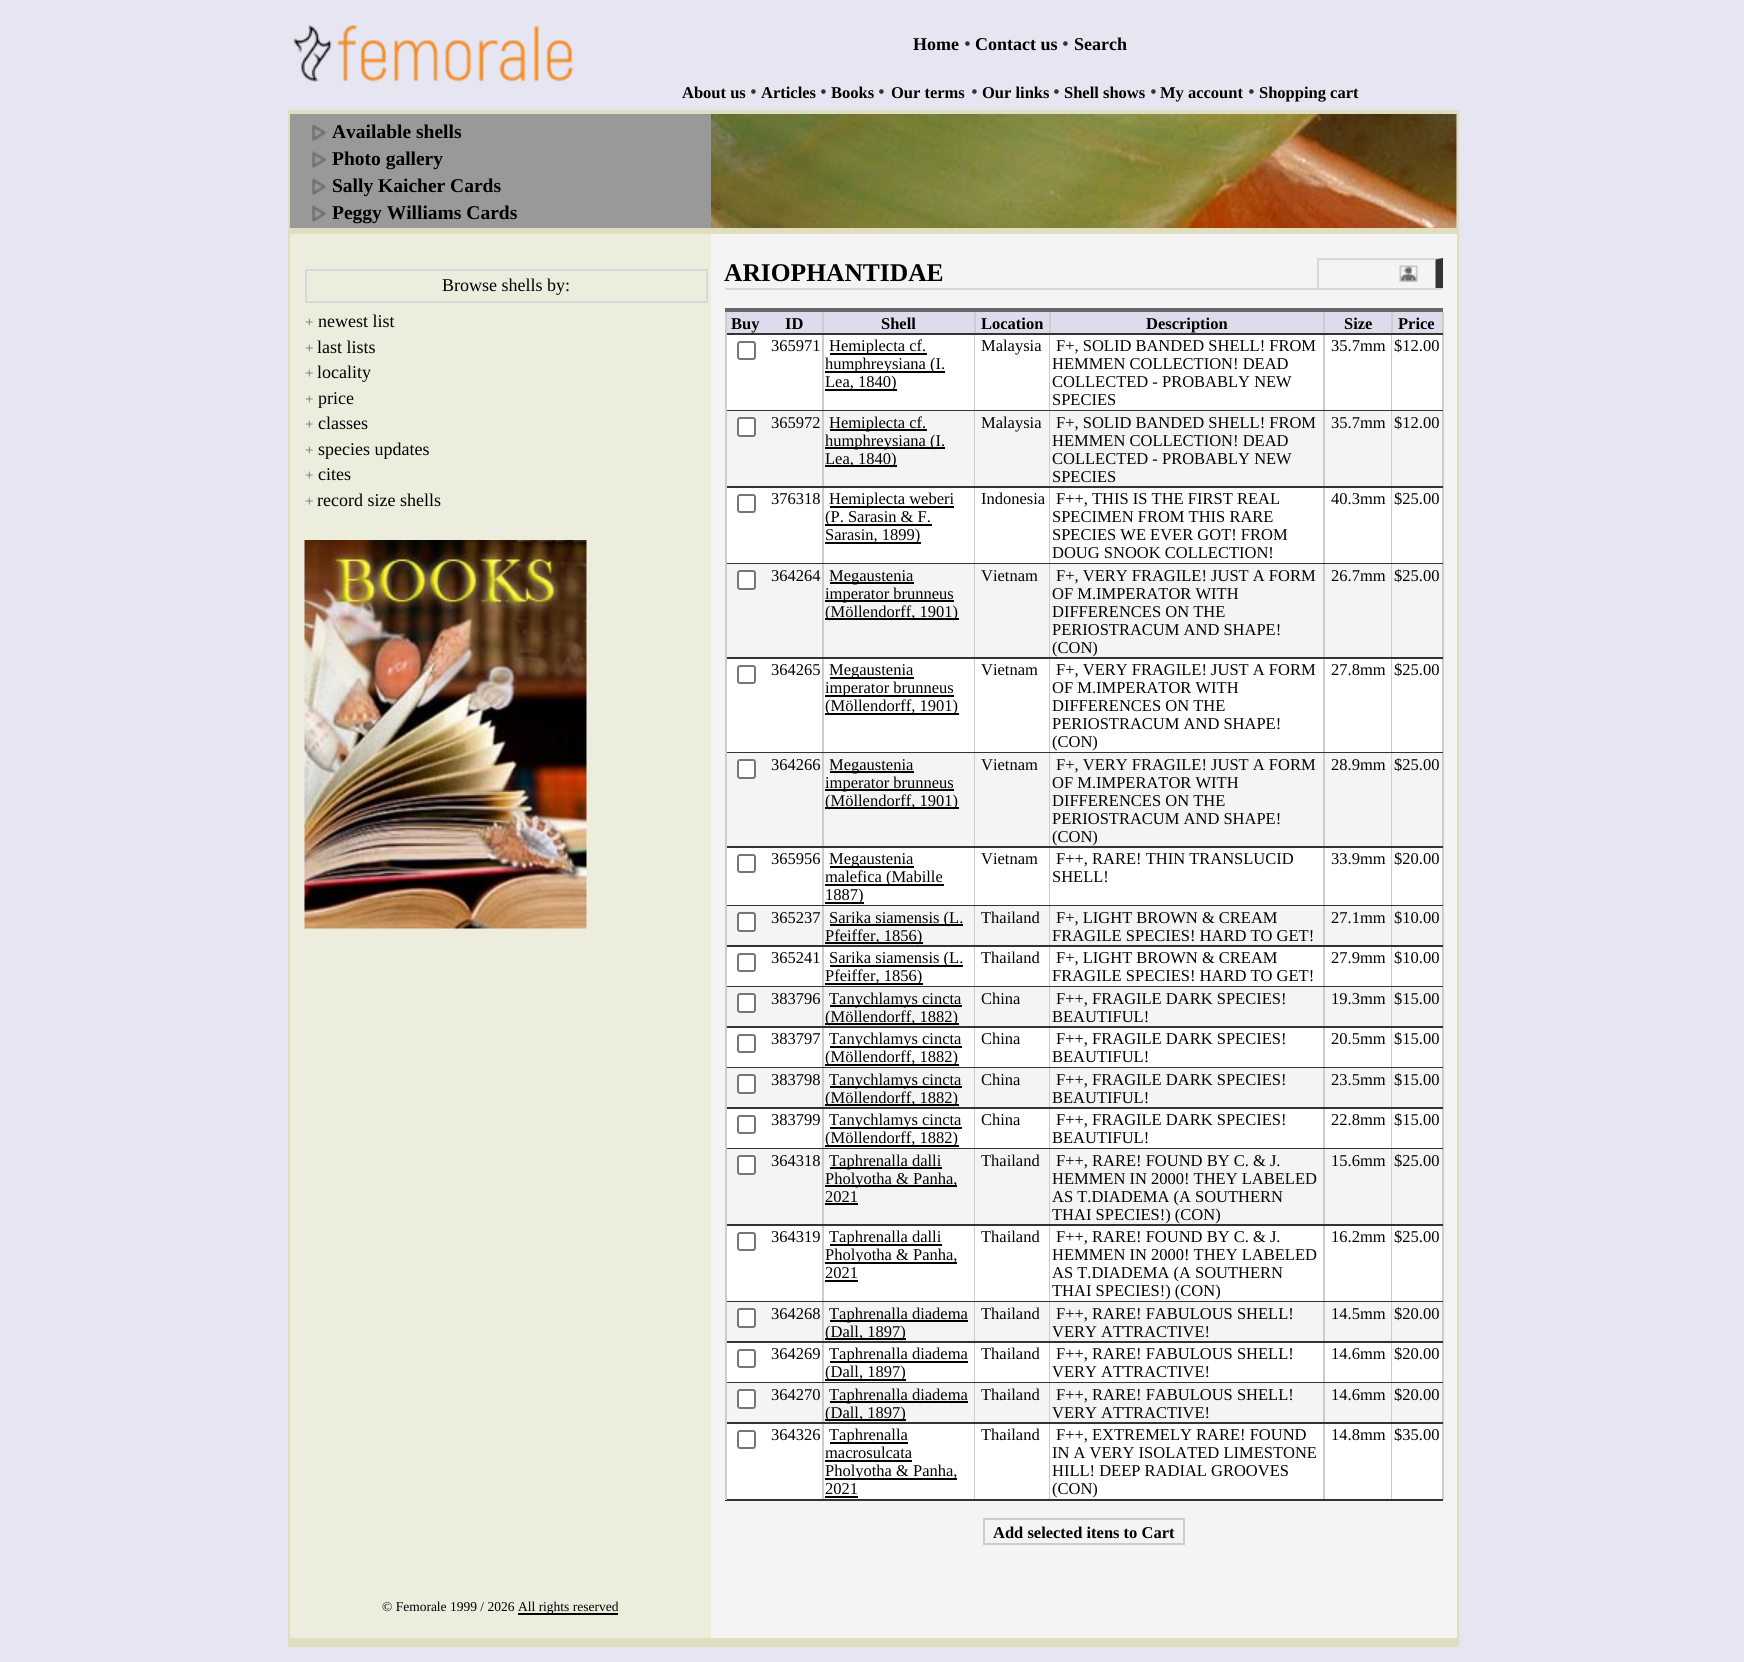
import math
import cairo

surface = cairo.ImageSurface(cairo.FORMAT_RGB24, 1744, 1662)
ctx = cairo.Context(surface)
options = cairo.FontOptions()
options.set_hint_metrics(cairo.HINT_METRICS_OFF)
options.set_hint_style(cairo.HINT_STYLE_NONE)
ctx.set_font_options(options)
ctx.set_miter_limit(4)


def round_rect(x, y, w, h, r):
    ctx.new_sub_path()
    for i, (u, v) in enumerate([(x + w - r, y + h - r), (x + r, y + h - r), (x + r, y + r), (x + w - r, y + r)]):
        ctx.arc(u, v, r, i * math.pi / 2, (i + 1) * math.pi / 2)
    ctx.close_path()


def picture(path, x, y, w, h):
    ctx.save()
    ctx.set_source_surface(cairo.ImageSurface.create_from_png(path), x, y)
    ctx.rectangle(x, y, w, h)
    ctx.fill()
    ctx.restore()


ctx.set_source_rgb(0.902, 0.902, 0.949)
ctx.paint()
picture("img1.png", 293, 25, 281, 57)
ctx.select_font_face("Liberation Serif", cairo.FONT_SLANT_NORMAL, cairo.FONT_WEIGHT_BOLD)
ctx.set_font_size(18)
ctx.set_source_rgb(0, 0, 0)
ctx.move_to(913, 50)
ctx.show_text("Home")
ctx.select_font_face("Liberation Serif")
ctx.set_font_size(19.5)
ctx.set_source_rgb(0.2, 0.2, 0.2)
ctx.move_to(964, 50)
ctx.show_text("•")
ctx.select_font_face("Liberation Serif", cairo.FONT_SLANT_NORMAL, cairo.FONT_WEIGHT_BOLD)
ctx.set_font_size(18)
ctx.set_source_rgb(0, 0, 0)
ctx.move_to(975, 50)
ctx.show_text("Contact us")
ctx.select_font_face("Liberation Serif")
ctx.set_font_size(19.5)
ctx.set_source_rgb(0.2, 0.2, 0.2)
ctx.move_to(1062, 50)
ctx.show_text("•")
ctx.select_font_face("Liberation Serif", cairo.FONT_SLANT_NORMAL, cairo.FONT_WEIGHT_BOLD)
ctx.set_font_size(18)
ctx.set_source_rgb(0, 0, 0)
ctx.move_to(1074, 50)
ctx.show_text("Search")
ctx.set_font_size(16.5)
ctx.move_to(682, 98)
ctx.show_text("About us")
ctx.select_font_face("Liberation Serif")
ctx.set_font_size(19.5)
ctx.set_source_rgb(0.2, 0.2, 0.2)
ctx.move_to(750, 98)
ctx.show_text("•")
ctx.select_font_face("Liberation Serif", cairo.FONT_SLANT_NORMAL, cairo.FONT_WEIGHT_BOLD)
ctx.set_font_size(16.5)
ctx.set_source_rgb(0, 0, 0)
ctx.move_to(761, 98)
ctx.show_text("Articles")
ctx.select_font_face("Liberation Serif")
ctx.set_font_size(19.5)
ctx.set_source_rgb(0.2, 0.2, 0.2)
ctx.move_to(820, 98)
ctx.show_text("•")
ctx.select_font_face("Liberation Serif", cairo.FONT_SLANT_NORMAL, cairo.FONT_WEIGHT_BOLD)
ctx.set_font_size(16.5)
ctx.set_source_rgb(0, 0, 0)
ctx.move_to(831, 98)
ctx.show_text("Books")
ctx.select_font_face("Liberation Serif")
ctx.set_font_size(19.5)
ctx.set_source_rgb(0.2, 0.2, 0.2)
ctx.move_to(878, 98)
ctx.show_text("•")
ctx.select_font_face("Liberation Serif", cairo.FONT_SLANT_NORMAL, cairo.FONT_WEIGHT_BOLD)
ctx.set_font_size(16.5)
ctx.set_source_rgb(0, 0, 0)
ctx.move_to(891, 98)
ctx.show_text("Our terms")
ctx.select_font_face("Liberation Serif")
ctx.set_font_size(19.5)
ctx.set_source_rgb(0.2, 0.2, 0.2)
ctx.move_to(971, 98)
ctx.show_text("•")
ctx.select_font_face("Liberation Serif", cairo.FONT_SLANT_NORMAL, cairo.FONT_WEIGHT_BOLD)
ctx.set_font_size(16.5)
ctx.set_source_rgb(0, 0, 0)
ctx.move_to(982, 98)
ctx.show_text("Our links")
ctx.select_font_face("Liberation Serif")
ctx.set_font_size(19.5)
ctx.set_source_rgb(0.2, 0.2, 0.2)
ctx.move_to(1053, 98)
ctx.show_text("•")
ctx.select_font_face("Liberation Serif", cairo.FONT_SLANT_NORMAL, cairo.FONT_WEIGHT_BOLD)
ctx.set_font_size(16.5)
ctx.set_source_rgb(0, 0, 0)
ctx.move_to(1064, 98)
ctx.show_text("Shell shows")
ctx.select_font_face("Liberation Serif")
ctx.set_font_size(19.5)
ctx.set_source_rgb(0.2, 0.2, 0.2)
ctx.move_to(1150, 98)
ctx.show_text("•")
ctx.select_font_face("Liberation Serif", cairo.FONT_SLANT_NORMAL, cairo.FONT_WEIGHT_BOLD)
ctx.set_font_size(16.5)
ctx.set_source_rgb(0, 0, 0)
ctx.move_to(1160, 98)
ctx.show_text("My account")
ctx.select_font_face("Liberation Serif")
ctx.set_font_size(19.5)
ctx.set_source_rgb(0.2, 0.2, 0.2)
ctx.move_to(1248, 98)
ctx.show_text("•")
ctx.select_font_face("Liberation Serif", cairo.FONT_SLANT_NORMAL, cairo.FONT_WEIGHT_BOLD)
ctx.set_font_size(16.5)
ctx.set_source_rgb(0, 0, 0)
ctx.move_to(1259, 98)
ctx.show_text("Shopping cart")
ctx.set_source_rgb(0.875, 0.875, 0.749)
ctx.rectangle(288, 110, 1170, 5)
ctx.fill()
ctx.rectangle(1457, 110, 2, 1537)
ctx.fill()
ctx.rectangle(290, 1638, 1167, 9)
ctx.fill()
ctx.rectangle(288, 110, 2, 1537)
ctx.fill()
ctx.set_source_rgb(0.6, 0.6, 0.6)
ctx.rectangle(290, 114, 421, 114)
ctx.fill()
ctx.set_source_rgb(0.875, 0.875, 0.749)
ctx.rectangle(290, 228, 1167, 6)
ctx.fill()
picture("img2.png", 312, 124, 15, 17)
ctx.set_font_size(19.5)
ctx.set_source_rgb(0, 0, 0)
ctx.move_to(332, 138)
ctx.show_text("Available shells")
picture("img2.png", 312, 151, 15, 17)
ctx.move_to(332, 165)
ctx.show_text("Photo gallery")
picture("img2.png", 312, 178, 15, 17)
ctx.move_to(332, 192)
ctx.show_text("Sally Kaicher Cards")
picture("img2.png", 312, 205, 15, 17)
ctx.move_to(332, 219)
ctx.show_text("Peggy Williams Cards")
picture("img3.png", 711, 114, 746, 114)
ctx.set_source_rgb(0.929, 0.929, 0.871)
ctx.rectangle(290, 234, 421, 1404)
ctx.fill()
ctx.rectangle(306, 270, 401, 32)
ctx.set_source_rgb(0.847, 0.847, 0.847)
ctx.stroke()
ctx.select_font_face("Liberation Serif")
ctx.set_font_size(18)
ctx.set_source_rgb(0, 0, 0)
ctx.move_to(442, 291)
ctx.show_text("Browse shells by:")
ctx.set_font_size(15)
ctx.set_source_rgb(0.4, 0.4, 0.4)
ctx.move_to(305, 327)
ctx.show_text("+")
ctx.set_font_size(18)
ctx.set_source_rgb(0, 0, 0)
ctx.move_to(318, 327)
ctx.show_text("newest list")
ctx.set_font_size(15)
ctx.set_source_rgb(0.4, 0.4, 0.4)
ctx.move_to(305, 353)
ctx.show_text("+")
ctx.set_font_size(18)
ctx.set_source_rgb(0, 0, 0)
ctx.move_to(317, 353)
ctx.show_text("last lists")
ctx.set_font_size(15)
ctx.set_source_rgb(0.4, 0.4, 0.4)
ctx.move_to(305, 378)
ctx.show_text("+")
ctx.set_font_size(18)
ctx.set_source_rgb(0, 0, 0)
ctx.move_to(317, 378)
ctx.show_text("locality")
ctx.set_font_size(15)
ctx.set_source_rgb(0.4, 0.4, 0.4)
ctx.move_to(305, 404)
ctx.show_text("+")
ctx.set_font_size(18)
ctx.set_source_rgb(0, 0, 0)
ctx.move_to(318, 404)
ctx.show_text("price")
ctx.set_font_size(15)
ctx.set_source_rgb(0.4, 0.4, 0.4)
ctx.move_to(305, 429)
ctx.show_text("+")
ctx.set_font_size(18)
ctx.set_source_rgb(0, 0, 0)
ctx.move_to(318, 429)
ctx.show_text("classes")
ctx.set_font_size(15)
ctx.set_source_rgb(0.4, 0.4, 0.4)
ctx.move_to(305, 455)
ctx.show_text("+")
ctx.set_font_size(18)
ctx.set_source_rgb(0, 0, 0)
ctx.move_to(318, 455)
ctx.show_text("species updates")
ctx.set_font_size(15)
ctx.set_source_rgb(0.4, 0.4, 0.4)
ctx.move_to(305, 480)
ctx.show_text("+")
ctx.set_font_size(18)
ctx.set_source_rgb(0, 0, 0)
ctx.move_to(318, 480)
ctx.show_text("cites")
ctx.set_font_size(15)
ctx.set_source_rgb(0.4, 0.4, 0.4)
ctx.move_to(305, 506)
ctx.show_text("+")
ctx.set_font_size(18)
ctx.set_source_rgb(0, 0, 0)
ctx.move_to(317, 506)
ctx.show_text("record size shells")
picture("img4.png", 304, 540, 283, 389)
ctx.set_source_rgb(0.957, 0.957, 0.957)
ctx.rectangle(711, 234, 746, 1404)
ctx.fill()
ctx.set_source_rgb(0.847, 0.847, 0.847)
ctx.rectangle(725, 288, 718, 2)
ctx.fill()
ctx.select_font_face("Liberation Serif", cairo.FONT_SLANT_NORMAL, cairo.FONT_WEIGHT_BOLD)
ctx.set_font_size(25.5)
ctx.set_source_rgb(0, 0, 0)
ctx.move_to(724, 281)
ctx.show_text("ARIOPHANTIDAE")
ctx.set_source_rgb(0.847, 0.847, 0.847)
ctx.new_path()
ctx.move_to(1317, 258)
ctx.line_to(1443, 258)
ctx.line_to(1436, 260)
ctx.line_to(1318, 260)
ctx.close_path()
ctx.fill()
ctx.set_source_rgb(0.2, 0.2, 0.2)
ctx.new_path()
ctx.move_to(1443, 258)
ctx.line_to(1443, 288)
ctx.line_to(1435.5, 288)
ctx.line_to(1435.5, 259.5)
ctx.close_path()
ctx.fill()
ctx.set_source_rgb(0.847, 0.847, 0.847)
ctx.rectangle(1317, 258, 2, 30)
ctx.fill()
picture("img5.png", 1399, 265, 19, 17)
ctx.set_source_rgb(0.4, 0.4, 0.4)
ctx.rectangle(725, 308, 718, 4)
ctx.fill()
ctx.set_source_rgb(0.863, 0.863, 0.929)
ctx.rectangle(727, 312, 715, 21)
ctx.fill()
ctx.set_source_rgb(0.2, 0.2, 0.2)
ctx.rectangle(725, 333, 40, 2)
ctx.fill()
ctx.set_source_rgb(0.8, 0.8, 0.8)
ctx.rectangle(725, 312, 2, 23)
ctx.fill()
ctx.set_font_size(16.5)
ctx.set_source_rgb(0, 0, 0)
ctx.move_to(731, 329)
ctx.show_text("Buy")
ctx.set_source_rgb(0.8, 0.8, 0.8)
ctx.rectangle(822, 312, 2, 1188)
ctx.fill()
ctx.set_source_rgb(0.2, 0.2, 0.2)
ctx.rectangle(765, 333, 59, 2)
ctx.fill()
ctx.set_source_rgb(0, 0, 0)
ctx.move_to(785, 329)
ctx.show_text("ID")
ctx.set_source_rgb(0.8, 0.8, 0.8)
ctx.rectangle(974, 312, 2, 23)
ctx.fill()
ctx.set_source_rgb(0.2, 0.2, 0.2)
ctx.rectangle(824, 333, 151, 2)
ctx.fill()
ctx.set_source_rgb(0, 0, 0)
ctx.move_to(881, 329)
ctx.show_text("Shell")
ctx.set_source_rgb(0.8, 0.8, 0.8)
ctx.rectangle(1049, 312, 2, 23)
ctx.fill()
ctx.set_source_rgb(0.2, 0.2, 0.2)
ctx.rectangle(975, 333, 75, 2)
ctx.fill()
ctx.set_source_rgb(0, 0, 0)
ctx.move_to(981, 329)
ctx.show_text("Location")
ctx.set_source_rgb(0.8, 0.8, 0.8)
ctx.rectangle(1323, 312, 2, 1188)
ctx.fill()
ctx.set_source_rgb(0.2, 0.2, 0.2)
ctx.rectangle(1050, 333, 275, 2)
ctx.fill()
ctx.set_source_rgb(0, 0, 0)
ctx.move_to(1146, 329)
ctx.show_text("Description")
ctx.set_source_rgb(0.8, 0.8, 0.8)
ctx.rectangle(1391, 312, 2, 23)
ctx.fill()
ctx.set_source_rgb(0.2, 0.2, 0.2)
ctx.rectangle(1325, 333, 67, 2)
ctx.fill()
ctx.set_source_rgb(0, 0, 0)
ctx.move_to(1344, 329)
ctx.show_text("Size")
ctx.set_source_rgb(0.8, 0.8, 0.8)
ctx.rectangle(1442, 312, 2, 1188)
ctx.fill()
ctx.set_source_rgb(0.2, 0.2, 0.2)
ctx.rectangle(1392, 333, 51, 2)
ctx.fill()
ctx.set_source_rgb(0, 0, 0)
ctx.move_to(1398, 329)
ctx.show_text("Price")
ctx.set_source_rgb(1, 1, 1)
ctx.rectangle(727, 335, 95, 75)
ctx.fill()
ctx.set_source_rgb(0.2, 0.2, 0.2)
ctx.rectangle(725, 410, 99, 1)
ctx.fill()
ctx.set_source_rgb(0.8, 0.8, 0.8)
ctx.rectangle(725, 335, 2, 76)
ctx.fill()
round_rect(738, 342, 17, 17, 2)
ctx.set_source_rgb(0.463, 0.463, 0.463)
ctx.stroke()
ctx.set_source_rgb(1, 1, 1)
ctx.rectangle(824, 335, 150, 75)
ctx.fill()
ctx.set_source_rgb(0.8, 0.8, 0.8)
ctx.rectangle(974, 335, 1, 1165)
ctx.fill()
ctx.set_source_rgb(0.2, 0.2, 0.2)
ctx.rectangle(824, 410, 151, 1)
ctx.fill()
ctx.set_source_rgb(0, 0, 0)
ctx.rectangle(830, 353, 97, 2)
ctx.fill()
ctx.select_font_face("Liberation Serif")
ctx.move_to(829, 351)
ctx.show_text("Hemiplecta cf.")
ctx.rectangle(825, 371, 120, 2)
ctx.fill()
ctx.move_to(825, 369)
ctx.show_text("humphreysiana (I.")
ctx.rectangle(825, 389, 72, 2)
ctx.fill()
ctx.move_to(825, 387)
ctx.show_text("Lea, 1840)")
ctx.set_source_rgb(1, 1, 1)
ctx.rectangle(975, 335, 74, 75)
ctx.fill()
ctx.set_source_rgb(0.8, 0.8, 0.8)
ctx.rectangle(1049, 335, 1, 1165)
ctx.fill()
ctx.set_source_rgb(0.2, 0.2, 0.2)
ctx.rectangle(975, 410, 350, 1)
ctx.fill()
ctx.set_source_rgb(0, 0, 0)
ctx.move_to(981, 351)
ctx.show_text("Malaysia")
ctx.set_source_rgb(1, 1, 1)
ctx.rectangle(1392, 335, 50, 75)
ctx.fill()
ctx.set_source_rgb(0, 0, 0)
ctx.move_to(1394, 351)
ctx.show_text("$12.00")
ctx.move_to(771, 351)
ctx.show_text("365971")
ctx.set_source_rgb(1, 1, 1)
ctx.rectangle(1050, 335, 273, 75)
ctx.fill()
ctx.set_source_rgb(0, 0, 0)
ctx.move_to(1056, 351)
ctx.show_text("F+, SOLID BANDED SHELL! FROM")
ctx.move_to(1052, 369)
ctx.show_text("HEMMEN COLLECTION! DEAD")
ctx.move_to(1052, 387)
ctx.show_text("COLLECTED - PROBABLY NEW")
ctx.move_to(1052, 405)
ctx.show_text("SPECIES")
ctx.set_source_rgb(1, 1, 1)
ctx.rectangle(1325, 335, 66, 75)
ctx.fill()
ctx.set_source_rgb(0.8, 0.8, 0.8)
ctx.rectangle(1391, 335, 1, 1165)
ctx.fill()
ctx.set_source_rgb(0.2, 0.2, 0.2)
ctx.rectangle(1325, 410, 118, 1)
ctx.fill()
ctx.set_source_rgb(0, 0, 0)
ctx.move_to(1331, 351)
ctx.show_text("35.7mm")
ctx.set_source_rgb(0.2, 0.2, 0.2)
ctx.rectangle(725, 486, 718, 2)
ctx.fill()
ctx.set_source_rgb(0.8, 0.8, 0.8)
ctx.rectangle(725, 411, 2, 77)
ctx.fill()
ctx.set_source_rgb(1, 1, 1)
round_rect(738, 418, 17, 18, 2)
ctx.fill_preserve()
ctx.set_source_rgb(0.463, 0.463, 0.463)
ctx.stroke()
ctx.set_source_rgb(0, 0, 0)
ctx.move_to(771, 428)
ctx.show_text("365972")
ctx.rectangle(830, 429, 97, 2)
ctx.fill()
ctx.move_to(829, 428)
ctx.show_text("Hemiplecta cf.")
ctx.rectangle(825, 447, 120, 2)
ctx.fill()
ctx.move_to(825, 446)
ctx.show_text("humphreysiana (I.")
ctx.rectangle(825, 465, 72, 2)
ctx.fill()
ctx.move_to(825, 464)
ctx.show_text("Lea, 1840)")
ctx.move_to(981, 428)
ctx.show_text("Malaysia")
ctx.move_to(1056, 428)
ctx.show_text("F+, SOLID BANDED SHELL! FROM")
ctx.move_to(1052, 446)
ctx.show_text("HEMMEN COLLECTION! DEAD")
ctx.move_to(1052, 464)
ctx.show_text("COLLECTED - PROBABLY NEW")
ctx.move_to(1052, 482)
ctx.show_text("SPECIES")
ctx.move_to(1331, 428)
ctx.show_text("35.7mm")
ctx.move_to(1394, 428)
ctx.show_text("$12.00")
ctx.set_source_rgb(1, 1, 1)
ctx.rectangle(727, 488, 95, 75)
ctx.fill()
ctx.set_source_rgb(0.2, 0.2, 0.2)
ctx.rectangle(725, 563, 718, 1)
ctx.fill()
ctx.set_source_rgb(0.8, 0.8, 0.8)
ctx.rectangle(725, 488, 2, 76)
ctx.fill()
round_rect(738, 495, 17, 17, 2)
ctx.set_source_rgb(0.463, 0.463, 0.463)
ctx.stroke()
ctx.set_source_rgb(0, 0, 0)
ctx.move_to(771, 504)
ctx.show_text("376318")
ctx.set_source_rgb(1, 1, 1)
ctx.rectangle(824, 488, 150, 75)
ctx.fill()
ctx.set_source_rgb(0, 0, 0)
ctx.rectangle(830, 506, 124, 2)
ctx.fill()
ctx.move_to(829, 504)
ctx.show_text("Hemiplecta weberi")
ctx.rectangle(825, 524, 107, 2)
ctx.fill()
ctx.move_to(825, 522)
ctx.show_text("(P. Sarasin & F.")
ctx.rectangle(825, 542, 96, 2)
ctx.fill()
ctx.move_to(825, 540)
ctx.show_text("Sarasin, 1899)")
ctx.set_source_rgb(1, 1, 1)
ctx.rectangle(975, 488, 74, 75)
ctx.fill()
ctx.set_source_rgb(0, 0, 0)
ctx.move_to(981, 504)
ctx.show_text("Indonesia")
ctx.set_source_rgb(1, 1, 1)
ctx.rectangle(1050, 488, 273, 75)
ctx.fill()
ctx.set_source_rgb(0, 0, 0)
ctx.move_to(1056, 504)
ctx.show_text("F++, THIS IS THE FIRST REAL")
ctx.move_to(1052, 522)
ctx.show_text("SPECIMEN FROM THIS RARE")
ctx.move_to(1052, 540)
ctx.show_text("SPECIES WE EVER GOT! FROM")
ctx.move_to(1052, 558)
ctx.show_text("DOUG SNOOK COLLECTION!")
ctx.set_source_rgb(1, 1, 1)
ctx.rectangle(1325, 488, 66, 75)
ctx.fill()
ctx.set_source_rgb(0, 0, 0)
ctx.move_to(1331, 504)
ctx.show_text("40.3mm")
ctx.set_source_rgb(1, 1, 1)
ctx.rectangle(1392, 488, 50, 75)
ctx.fill()
ctx.set_source_rgb(0, 0, 0)
ctx.move_to(1394, 504)
ctx.show_text("$25.00")
ctx.set_source_rgb(0.2, 0.2, 0.2)
ctx.rectangle(725, 657, 718, 2)
ctx.fill()
ctx.set_source_rgb(0.8, 0.8, 0.8)
ctx.rectangle(725, 564, 2, 95)
ctx.fill()
ctx.set_source_rgb(1, 1, 1)
round_rect(738, 571, 17, 18, 2)
ctx.fill_preserve()
ctx.set_source_rgb(0.463, 0.463, 0.463)
ctx.stroke()
ctx.set_source_rgb(0, 0, 0)
ctx.move_to(771, 581)
ctx.show_text("364264")
ctx.rectangle(830, 582, 84, 2)
ctx.fill()
ctx.move_to(829, 581)
ctx.show_text("Megaustenia")
ctx.rectangle(825, 600, 129, 2)
ctx.fill()
ctx.move_to(825, 599)
ctx.show_text("imperator brunneus")
ctx.rectangle(825, 618, 134, 2)
ctx.fill()
ctx.move_to(825, 617)
ctx.show_text("(Möllendorff, 1901)")
ctx.move_to(981, 581)
ctx.show_text("Vietnam")
ctx.move_to(1056, 581)
ctx.show_text("F+, VERY FRAGILE! JUST A FORM")
ctx.move_to(1052, 599)
ctx.show_text("OF M.IMPERATOR WITH")
ctx.move_to(1052, 617)
ctx.show_text("DIFFERENCES ON THE")
ctx.move_to(1052, 635)
ctx.show_text("PERIOSTRACUM AND SHAPE!")
ctx.move_to(1052, 653)
ctx.show_text("(CON)")
ctx.move_to(1331, 581)
ctx.show_text("26.7mm")
ctx.move_to(1394, 581)
ctx.show_text("$25.00")
ctx.set_source_rgb(1, 1, 1)
ctx.rectangle(727, 659, 95, 93)
ctx.fill()
ctx.set_source_rgb(0.2, 0.2, 0.2)
ctx.rectangle(725, 752, 718, 1)
ctx.fill()
ctx.set_source_rgb(0.8, 0.8, 0.8)
ctx.rectangle(725, 659, 2, 94)
ctx.fill()
round_rect(738, 666, 17, 17, 2)
ctx.set_source_rgb(0.463, 0.463, 0.463)
ctx.stroke()
ctx.set_source_rgb(0, 0, 0)
ctx.move_to(771, 675)
ctx.show_text("364265")
ctx.set_source_rgb(1, 1, 1)
ctx.rectangle(824, 659, 150, 93)
ctx.fill()
ctx.set_source_rgb(0, 0, 0)
ctx.rectangle(830, 677, 84, 2)
ctx.fill()
ctx.move_to(829, 675)
ctx.show_text("Megaustenia")
ctx.rectangle(825, 695, 129, 2)
ctx.fill()
ctx.move_to(825, 693)
ctx.show_text("imperator brunneus")
ctx.rectangle(825, 713, 134, 2)
ctx.fill()
ctx.move_to(825, 711)
ctx.show_text("(Möllendorff, 1901)")
ctx.set_source_rgb(1, 1, 1)
ctx.rectangle(975, 659, 74, 93)
ctx.fill()
ctx.set_source_rgb(0, 0, 0)
ctx.move_to(981, 675)
ctx.show_text("Vietnam")
ctx.set_source_rgb(1, 1, 1)
ctx.rectangle(1050, 659, 273, 93)
ctx.fill()
ctx.set_source_rgb(0, 0, 0)
ctx.move_to(1056, 675)
ctx.show_text("F+, VERY FRAGILE! JUST A FORM")
ctx.move_to(1052, 693)
ctx.show_text("OF M.IMPERATOR WITH")
ctx.move_to(1052, 711)
ctx.show_text("DIFFERENCES ON THE")
ctx.move_to(1052, 729)
ctx.show_text("PERIOSTRACUM AND SHAPE!")
ctx.move_to(1052, 747)
ctx.show_text("(CON)")
ctx.set_source_rgb(1, 1, 1)
ctx.rectangle(1325, 659, 66, 93)
ctx.fill()
ctx.set_source_rgb(0, 0, 0)
ctx.move_to(1331, 675)
ctx.show_text("27.8mm")
ctx.set_source_rgb(1, 1, 1)
ctx.rectangle(1392, 659, 50, 93)
ctx.fill()
ctx.set_source_rgb(0, 0, 0)
ctx.move_to(1394, 675)
ctx.show_text("$25.00")
ctx.set_source_rgb(0.2, 0.2, 0.2)
ctx.rectangle(725, 846, 718, 2)
ctx.fill()
ctx.set_source_rgb(0.8, 0.8, 0.8)
ctx.rectangle(725, 753, 2, 95)
ctx.fill()
ctx.set_source_rgb(1, 1, 1)
round_rect(738, 760, 17, 18, 2)
ctx.fill_preserve()
ctx.set_source_rgb(0.463, 0.463, 0.463)
ctx.stroke()
ctx.set_source_rgb(0, 0, 0)
ctx.move_to(771, 770)
ctx.show_text("364266")
ctx.rectangle(830, 771, 84, 2)
ctx.fill()
ctx.move_to(829, 770)
ctx.show_text("Megaustenia")
ctx.rectangle(825, 789, 129, 2)
ctx.fill()
ctx.move_to(825, 788)
ctx.show_text("imperator brunneus")
ctx.rectangle(825, 807, 134, 2)
ctx.fill()
ctx.move_to(825, 806)
ctx.show_text("(Möllendorff, 1901)")
ctx.move_to(981, 770)
ctx.show_text("Vietnam")
ctx.move_to(1056, 770)
ctx.show_text("F+, VERY FRAGILE! JUST A FORM")
ctx.move_to(1052, 788)
ctx.show_text("OF M.IMPERATOR WITH")
ctx.move_to(1052, 806)
ctx.show_text("DIFFERENCES ON THE")
ctx.move_to(1052, 824)
ctx.show_text("PERIOSTRACUM AND SHAPE!")
ctx.move_to(1052, 842)
ctx.show_text("(CON)")
ctx.move_to(1331, 770)
ctx.show_text("28.9mm")
ctx.move_to(1394, 770)
ctx.show_text("$25.00")
ctx.set_source_rgb(1, 1, 1)
ctx.rectangle(727, 848, 95, 57)
ctx.fill()
ctx.set_source_rgb(0.2, 0.2, 0.2)
ctx.rectangle(725, 905, 718, 1)
ctx.fill()
ctx.set_source_rgb(0.8, 0.8, 0.8)
ctx.rectangle(725, 848, 2, 58)
ctx.fill()
round_rect(738, 855, 17, 17, 2)
ctx.set_source_rgb(0.463, 0.463, 0.463)
ctx.stroke()
ctx.set_source_rgb(0, 0, 0)
ctx.move_to(771, 864)
ctx.show_text("365956")
ctx.set_source_rgb(1, 1, 1)
ctx.rectangle(824, 848, 150, 57)
ctx.fill()
ctx.set_source_rgb(0, 0, 0)
ctx.rectangle(830, 866, 84, 2)
ctx.fill()
ctx.move_to(829, 864)
ctx.show_text("Megaustenia")
ctx.rectangle(825, 884, 119, 2)
ctx.fill()
ctx.move_to(825, 882)
ctx.show_text("malefica (Mabille")
ctx.rectangle(825, 902, 39, 2)
ctx.fill()
ctx.move_to(825, 900)
ctx.show_text("1887)")
ctx.set_source_rgb(1, 1, 1)
ctx.rectangle(975, 848, 74, 57)
ctx.fill()
ctx.set_source_rgb(0, 0, 0)
ctx.move_to(981, 864)
ctx.show_text("Vietnam")
ctx.set_source_rgb(1, 1, 1)
ctx.rectangle(1050, 848, 273, 57)
ctx.fill()
ctx.set_source_rgb(0, 0, 0)
ctx.move_to(1056, 864)
ctx.show_text("F++, RARE! THIN TRANSLUCID")
ctx.move_to(1052, 882)
ctx.show_text("SHELL!")
ctx.set_source_rgb(1, 1, 1)
ctx.rectangle(1325, 848, 66, 57)
ctx.fill()
ctx.set_source_rgb(0, 0, 0)
ctx.move_to(1331, 864)
ctx.show_text("33.9mm")
ctx.set_source_rgb(1, 1, 1)
ctx.rectangle(1392, 848, 50, 57)
ctx.fill()
ctx.set_source_rgb(0, 0, 0)
ctx.move_to(1394, 864)
ctx.show_text("$20.00")
ctx.set_source_rgb(0.2, 0.2, 0.2)
ctx.rectangle(725, 945, 718, 2)
ctx.fill()
ctx.set_source_rgb(0.8, 0.8, 0.8)
ctx.rectangle(725, 906, 2, 41)
ctx.fill()
ctx.set_source_rgb(1, 1, 1)
round_rect(738, 913, 17, 18, 2)
ctx.fill_preserve()
ctx.set_source_rgb(0.463, 0.463, 0.463)
ctx.stroke()
ctx.set_source_rgb(0, 0, 0)
ctx.move_to(771, 923)
ctx.show_text("365237")
ctx.rectangle(830, 924, 133, 2)
ctx.fill()
ctx.move_to(829, 923)
ctx.show_text("Sarika siamensis (L.")
ctx.rectangle(825, 942, 98, 2)
ctx.fill()
ctx.move_to(825, 941)
ctx.show_text("Pfeiffer, 1856)")
ctx.move_to(981, 923)
ctx.show_text("Thailand")
ctx.move_to(1056, 923)
ctx.show_text("F+, LIGHT BROWN & CREAM")
ctx.move_to(1052, 941)
ctx.show_text("FRAGILE SPECIES! HARD TO GET!")
ctx.move_to(1331, 923)
ctx.show_text("27.1mm")
ctx.move_to(1394, 923)
ctx.show_text("$10.00")
ctx.set_source_rgb(1, 1, 1)
ctx.rectangle(727, 947, 95, 39)
ctx.fill()
ctx.set_source_rgb(0.2, 0.2, 0.2)
ctx.rectangle(725, 986, 718, 1)
ctx.fill()
ctx.set_source_rgb(0.8, 0.8, 0.8)
ctx.rectangle(725, 947, 2, 40)
ctx.fill()
round_rect(738, 954, 17, 17, 2)
ctx.set_source_rgb(0.463, 0.463, 0.463)
ctx.stroke()
ctx.set_source_rgb(0, 0, 0)
ctx.move_to(771, 963)
ctx.show_text("365241")
ctx.set_source_rgb(1, 1, 1)
ctx.rectangle(824, 947, 150, 39)
ctx.fill()
ctx.set_source_rgb(0, 0, 0)
ctx.rectangle(830, 965, 133, 2)
ctx.fill()
ctx.move_to(829, 963)
ctx.show_text("Sarika siamensis (L.")
ctx.rectangle(825, 983, 98, 2)
ctx.fill()
ctx.move_to(825, 981)
ctx.show_text("Pfeiffer, 1856)")
ctx.set_source_rgb(1, 1, 1)
ctx.rectangle(975, 947, 74, 39)
ctx.fill()
ctx.set_source_rgb(0, 0, 0)
ctx.move_to(981, 963)
ctx.show_text("Thailand")
ctx.set_source_rgb(1, 1, 1)
ctx.rectangle(1050, 947, 273, 39)
ctx.fill()
ctx.set_source_rgb(0, 0, 0)
ctx.move_to(1056, 963)
ctx.show_text("F+, LIGHT BROWN & CREAM")
ctx.move_to(1052, 981)
ctx.show_text("FRAGILE SPECIES! HARD TO GET!")
ctx.set_source_rgb(1, 1, 1)
ctx.rectangle(1325, 947, 66, 39)
ctx.fill()
ctx.set_source_rgb(0, 0, 0)
ctx.move_to(1331, 963)
ctx.show_text("27.9mm")
ctx.set_source_rgb(1, 1, 1)
ctx.rectangle(1392, 947, 50, 39)
ctx.fill()
ctx.set_source_rgb(0, 0, 0)
ctx.move_to(1394, 963)
ctx.show_text("$10.00")
ctx.set_source_rgb(0.2, 0.2, 0.2)
ctx.rectangle(725, 1026, 718, 2)
ctx.fill()
ctx.set_source_rgb(0.8, 0.8, 0.8)
ctx.rectangle(725, 987, 2, 41)
ctx.fill()
ctx.set_source_rgb(1, 1, 1)
round_rect(738, 994, 17, 18, 2)
ctx.fill_preserve()
ctx.set_source_rgb(0.463, 0.463, 0.463)
ctx.stroke()
ctx.set_source_rgb(0, 0, 0)
ctx.move_to(771, 1004)
ctx.show_text("383796")
ctx.rectangle(830, 1005, 132, 2)
ctx.fill()
ctx.move_to(829, 1004)
ctx.show_text("Tanychlamys cincta")
ctx.rectangle(825, 1023, 134, 2)
ctx.fill()
ctx.move_to(825, 1022)
ctx.show_text("(Möllendorff, 1882)")
ctx.move_to(981, 1004)
ctx.show_text("China")
ctx.move_to(1056, 1004)
ctx.show_text("F++, FRAGILE DARK SPECIES!")
ctx.move_to(1052, 1022)
ctx.show_text("BEAUTIFUL!")
ctx.move_to(1331, 1004)
ctx.show_text("19.3mm")
ctx.move_to(1394, 1004)
ctx.show_text("$15.00")
ctx.set_source_rgb(1, 1, 1)
ctx.rectangle(727, 1028, 95, 39)
ctx.fill()
ctx.set_source_rgb(0.2, 0.2, 0.2)
ctx.rectangle(725, 1067, 718, 1)
ctx.fill()
ctx.set_source_rgb(0.8, 0.8, 0.8)
ctx.rectangle(725, 1028, 2, 40)
ctx.fill()
round_rect(738, 1035, 17, 17, 2)
ctx.set_source_rgb(0.463, 0.463, 0.463)
ctx.stroke()
ctx.set_source_rgb(0, 0, 0)
ctx.move_to(771, 1044)
ctx.show_text("383797")
ctx.set_source_rgb(1, 1, 1)
ctx.rectangle(824, 1028, 150, 39)
ctx.fill()
ctx.set_source_rgb(0, 0, 0)
ctx.rectangle(830, 1046, 132, 2)
ctx.fill()
ctx.move_to(829, 1044)
ctx.show_text("Tanychlamys cincta")
ctx.rectangle(825, 1064, 134, 2)
ctx.fill()
ctx.move_to(825, 1062)
ctx.show_text("(Möllendorff, 1882)")
ctx.set_source_rgb(1, 1, 1)
ctx.rectangle(975, 1028, 74, 39)
ctx.fill()
ctx.set_source_rgb(0, 0, 0)
ctx.move_to(981, 1044)
ctx.show_text("China")
ctx.set_source_rgb(1, 1, 1)
ctx.rectangle(1050, 1028, 273, 39)
ctx.fill()
ctx.set_source_rgb(0, 0, 0)
ctx.move_to(1056, 1044)
ctx.show_text("F++, FRAGILE DARK SPECIES!")
ctx.move_to(1052, 1062)
ctx.show_text("BEAUTIFUL!")
ctx.set_source_rgb(1, 1, 1)
ctx.rectangle(1325, 1028, 66, 39)
ctx.fill()
ctx.set_source_rgb(0, 0, 0)
ctx.move_to(1331, 1044)
ctx.show_text("20.5mm")
ctx.set_source_rgb(1, 1, 1)
ctx.rectangle(1392, 1028, 50, 39)
ctx.fill()
ctx.set_source_rgb(0, 0, 0)
ctx.move_to(1394, 1044)
ctx.show_text("$15.00")
ctx.set_source_rgb(0.2, 0.2, 0.2)
ctx.rectangle(725, 1107, 718, 2)
ctx.fill()
ctx.set_source_rgb(0.8, 0.8, 0.8)
ctx.rectangle(725, 1068, 2, 41)
ctx.fill()
ctx.set_source_rgb(1, 1, 1)
round_rect(738, 1075, 17, 18, 2)
ctx.fill_preserve()
ctx.set_source_rgb(0.463, 0.463, 0.463)
ctx.stroke()
ctx.set_source_rgb(0, 0, 0)
ctx.move_to(771, 1085)
ctx.show_text("383798")
ctx.rectangle(830, 1086, 132, 2)
ctx.fill()
ctx.move_to(829, 1085)
ctx.show_text("Tanychlamys cincta")
ctx.rectangle(825, 1104, 134, 2)
ctx.fill()
ctx.move_to(825, 1103)
ctx.show_text("(Möllendorff, 1882)")
ctx.move_to(981, 1085)
ctx.show_text("China")
ctx.move_to(1056, 1085)
ctx.show_text("F++, FRAGILE DARK SPECIES!")
ctx.move_to(1052, 1103)
ctx.show_text("BEAUTIFUL!")
ctx.move_to(1331, 1085)
ctx.show_text("23.5mm")
ctx.move_to(1394, 1085)
ctx.show_text("$15.00")
ctx.set_source_rgb(1, 1, 1)
ctx.rectangle(727, 1109, 95, 39)
ctx.fill()
ctx.set_source_rgb(0.2, 0.2, 0.2)
ctx.rectangle(725, 1148, 718, 1)
ctx.fill()
ctx.set_source_rgb(0.8, 0.8, 0.8)
ctx.rectangle(725, 1109, 2, 40)
ctx.fill()
round_rect(738, 1116, 17, 17, 2)
ctx.set_source_rgb(0.463, 0.463, 0.463)
ctx.stroke()
ctx.set_source_rgb(0, 0, 0)
ctx.move_to(771, 1125)
ctx.show_text("383799")
ctx.set_source_rgb(1, 1, 1)
ctx.rectangle(824, 1109, 150, 39)
ctx.fill()
ctx.set_source_rgb(0, 0, 0)
ctx.rectangle(830, 1127, 132, 2)
ctx.fill()
ctx.move_to(829, 1125)
ctx.show_text("Tanychlamys cincta")
ctx.rectangle(825, 1145, 134, 2)
ctx.fill()
ctx.move_to(825, 1143)
ctx.show_text("(Möllendorff, 1882)")
ctx.set_source_rgb(1, 1, 1)
ctx.rectangle(975, 1109, 74, 39)
ctx.fill()
ctx.set_source_rgb(0, 0, 0)
ctx.move_to(981, 1125)
ctx.show_text("China")
ctx.set_source_rgb(1, 1, 1)
ctx.rectangle(1050, 1109, 273, 39)
ctx.fill()
ctx.set_source_rgb(0, 0, 0)
ctx.move_to(1056, 1125)
ctx.show_text("F++, FRAGILE DARK SPECIES!")
ctx.move_to(1052, 1143)
ctx.show_text("BEAUTIFUL!")
ctx.set_source_rgb(1, 1, 1)
ctx.rectangle(1325, 1109, 66, 39)
ctx.fill()
ctx.set_source_rgb(0, 0, 0)
ctx.move_to(1331, 1125)
ctx.show_text("22.8mm")
ctx.set_source_rgb(1, 1, 1)
ctx.rectangle(1392, 1109, 50, 39)
ctx.fill()
ctx.set_source_rgb(0, 0, 0)
ctx.move_to(1394, 1125)
ctx.show_text("$15.00")
ctx.set_source_rgb(0.2, 0.2, 0.2)
ctx.rectangle(725, 1224, 718, 2)
ctx.fill()
ctx.set_source_rgb(0.8, 0.8, 0.8)
ctx.rectangle(725, 1149, 2, 77)
ctx.fill()
ctx.set_source_rgb(1, 1, 1)
round_rect(738, 1156, 17, 18, 2)
ctx.fill_preserve()
ctx.set_source_rgb(0.463, 0.463, 0.463)
ctx.stroke()
ctx.set_source_rgb(0, 0, 0)
ctx.move_to(771, 1166)
ctx.show_text("364318")
ctx.rectangle(830, 1167, 112, 2)
ctx.fill()
ctx.move_to(829, 1166)
ctx.show_text("Taphrenalla dalli")
ctx.rectangle(825, 1185, 132, 2)
ctx.fill()
ctx.move_to(825, 1184)
ctx.show_text("Pholyotha & Panha,")
ctx.move_to(825, 1202)
ctx.show_text("2021")
ctx.rectangle(825, 1203, 33, 2)
ctx.fill()
ctx.move_to(981, 1166)
ctx.show_text("Thailand")
ctx.move_to(1056, 1166)
ctx.show_text("F++, RARE! FOUND BY C. & J.")
ctx.move_to(1052, 1184)
ctx.show_text("HEMMEN IN 2000! THEY LABELED")
ctx.move_to(1052, 1202)
ctx.show_text("AS T.DIADEMA (A SOUTHERN")
ctx.move_to(1052, 1220)
ctx.show_text("THAI SPECIES!) (CON)")
ctx.move_to(1331, 1166)
ctx.show_text("15.6mm")
ctx.move_to(1394, 1166)
ctx.show_text("$25.00")
ctx.set_source_rgb(1, 1, 1)
ctx.rectangle(727, 1226, 95, 75)
ctx.fill()
ctx.set_source_rgb(0.2, 0.2, 0.2)
ctx.rectangle(725, 1301, 718, 1)
ctx.fill()
ctx.set_source_rgb(0.8, 0.8, 0.8)
ctx.rectangle(725, 1226, 2, 76)
ctx.fill()
round_rect(738, 1233, 17, 17, 2)
ctx.set_source_rgb(0.463, 0.463, 0.463)
ctx.stroke()
ctx.set_source_rgb(0, 0, 0)
ctx.move_to(771, 1242)
ctx.show_text("364319")
ctx.set_source_rgb(1, 1, 1)
ctx.rectangle(824, 1226, 150, 75)
ctx.fill()
ctx.set_source_rgb(0, 0, 0)
ctx.rectangle(830, 1244, 112, 2)
ctx.fill()
ctx.move_to(829, 1242)
ctx.show_text("Taphrenalla dalli")
ctx.rectangle(825, 1262, 132, 2)
ctx.fill()
ctx.move_to(825, 1260)
ctx.show_text("Pholyotha & Panha,")
ctx.move_to(825, 1278)
ctx.show_text("2021")
ctx.rectangle(825, 1280, 33, 2)
ctx.fill()
ctx.set_source_rgb(1, 1, 1)
ctx.rectangle(975, 1226, 74, 75)
ctx.fill()
ctx.set_source_rgb(0, 0, 0)
ctx.move_to(981, 1242)
ctx.show_text("Thailand")
ctx.set_source_rgb(1, 1, 1)
ctx.rectangle(1050, 1226, 273, 75)
ctx.fill()
ctx.set_source_rgb(0, 0, 0)
ctx.move_to(1056, 1242)
ctx.show_text("F++, RARE! FOUND BY C. & J.")
ctx.move_to(1052, 1260)
ctx.show_text("HEMMEN IN 2000! THEY LABELED")
ctx.move_to(1052, 1278)
ctx.show_text("AS T.DIADEMA (A SOUTHERN")
ctx.move_to(1052, 1296)
ctx.show_text("THAI SPECIES!) (CON)")
ctx.set_source_rgb(1, 1, 1)
ctx.rectangle(1325, 1226, 66, 75)
ctx.fill()
ctx.set_source_rgb(0, 0, 0)
ctx.move_to(1331, 1242)
ctx.show_text("16.2mm")
ctx.set_source_rgb(1, 1, 1)
ctx.rectangle(1392, 1226, 50, 75)
ctx.fill()
ctx.set_source_rgb(0, 0, 0)
ctx.move_to(1394, 1242)
ctx.show_text("$25.00")
ctx.set_source_rgb(0.2, 0.2, 0.2)
ctx.rectangle(725, 1341, 718, 2)
ctx.fill()
ctx.set_source_rgb(0.8, 0.8, 0.8)
ctx.rectangle(725, 1302, 2, 41)
ctx.fill()
ctx.set_source_rgb(1, 1, 1)
round_rect(738, 1309, 17, 18, 2)
ctx.fill_preserve()
ctx.set_source_rgb(0.463, 0.463, 0.463)
ctx.stroke()
ctx.set_source_rgb(0, 0, 0)
ctx.move_to(771, 1319)
ctx.show_text("364268")
ctx.rectangle(830, 1320, 138, 2)
ctx.fill()
ctx.move_to(829, 1319)
ctx.show_text("Taphrenalla diadema")
ctx.rectangle(825, 1338, 81, 2)
ctx.fill()
ctx.move_to(825, 1337)
ctx.show_text("(Dall, 1897)")
ctx.move_to(981, 1319)
ctx.show_text("Thailand")
ctx.move_to(1056, 1319)
ctx.show_text("F++, RARE! FABULOUS SHELL!")
ctx.move_to(1052, 1337)
ctx.show_text("VERY ATTRACTIVE!")
ctx.move_to(1331, 1319)
ctx.show_text("14.5mm")
ctx.move_to(1394, 1319)
ctx.show_text("$20.00")
ctx.set_source_rgb(1, 1, 1)
ctx.rectangle(727, 1343, 95, 39)
ctx.fill()
ctx.set_source_rgb(0.2, 0.2, 0.2)
ctx.rectangle(725, 1382, 718, 1)
ctx.fill()
ctx.set_source_rgb(0.8, 0.8, 0.8)
ctx.rectangle(725, 1343, 2, 40)
ctx.fill()
round_rect(738, 1350, 17, 17, 2)
ctx.set_source_rgb(0.463, 0.463, 0.463)
ctx.stroke()
ctx.set_source_rgb(0, 0, 0)
ctx.move_to(771, 1359)
ctx.show_text("364269")
ctx.set_source_rgb(1, 1, 1)
ctx.rectangle(824, 1343, 150, 39)
ctx.fill()
ctx.set_source_rgb(0, 0, 0)
ctx.rectangle(830, 1361, 138, 2)
ctx.fill()
ctx.move_to(829, 1359)
ctx.show_text("Taphrenalla diadema")
ctx.rectangle(825, 1379, 81, 2)
ctx.fill()
ctx.move_to(825, 1377)
ctx.show_text("(Dall, 1897)")
ctx.set_source_rgb(1, 1, 1)
ctx.rectangle(975, 1343, 74, 39)
ctx.fill()
ctx.set_source_rgb(0, 0, 0)
ctx.move_to(981, 1359)
ctx.show_text("Thailand")
ctx.set_source_rgb(1, 1, 1)
ctx.rectangle(1050, 1343, 273, 39)
ctx.fill()
ctx.set_source_rgb(0, 0, 0)
ctx.move_to(1056, 1359)
ctx.show_text("F++, RARE! FABULOUS SHELL!")
ctx.move_to(1052, 1377)
ctx.show_text("VERY ATTRACTIVE!")
ctx.set_source_rgb(1, 1, 1)
ctx.rectangle(1325, 1343, 66, 39)
ctx.fill()
ctx.set_source_rgb(0, 0, 0)
ctx.move_to(1331, 1359)
ctx.show_text("14.6mm")
ctx.set_source_rgb(1, 1, 1)
ctx.rectangle(1392, 1343, 50, 39)
ctx.fill()
ctx.set_source_rgb(0, 0, 0)
ctx.move_to(1394, 1359)
ctx.show_text("$20.00")
ctx.set_source_rgb(0.2, 0.2, 0.2)
ctx.rectangle(725, 1422, 718, 2)
ctx.fill()
ctx.set_source_rgb(0.8, 0.8, 0.8)
ctx.rectangle(725, 1383, 2, 41)
ctx.fill()
ctx.set_source_rgb(1, 1, 1)
round_rect(738, 1390, 17, 18, 2)
ctx.fill_preserve()
ctx.set_source_rgb(0.463, 0.463, 0.463)
ctx.stroke()
ctx.set_source_rgb(0, 0, 0)
ctx.move_to(771, 1400)
ctx.show_text("364270")
ctx.rectangle(830, 1401, 138, 2)
ctx.fill()
ctx.move_to(829, 1400)
ctx.show_text("Taphrenalla diadema")
ctx.rectangle(825, 1419, 81, 2)
ctx.fill()
ctx.move_to(825, 1418)
ctx.show_text("(Dall, 1897)")
ctx.move_to(981, 1400)
ctx.show_text("Thailand")
ctx.move_to(1056, 1400)
ctx.show_text("F++, RARE! FABULOUS SHELL!")
ctx.move_to(1052, 1418)
ctx.show_text("VERY ATTRACTIVE!")
ctx.move_to(1331, 1400)
ctx.show_text("14.6mm")
ctx.move_to(1394, 1400)
ctx.show_text("$20.00")
ctx.set_source_rgb(1, 1, 1)
ctx.rectangle(727, 1424, 95, 75)
ctx.fill()
ctx.set_source_rgb(0.2, 0.2, 0.2)
ctx.rectangle(725, 1499, 718, 2)
ctx.fill()
ctx.set_source_rgb(0.8, 0.8, 0.8)
ctx.rectangle(725, 1424, 2, 76)
ctx.fill()
round_rect(738, 1431, 17, 17, 2)
ctx.set_source_rgb(0.463, 0.463, 0.463)
ctx.stroke()
ctx.set_source_rgb(0, 0, 0)
ctx.move_to(771, 1440)
ctx.show_text("364326")
ctx.set_source_rgb(1, 1, 1)
ctx.rectangle(824, 1424, 150, 75)
ctx.fill()
ctx.set_source_rgb(0, 0, 0)
ctx.rectangle(830, 1442, 78, 2)
ctx.fill()
ctx.move_to(829, 1440)
ctx.show_text("Taphrenalla")
ctx.move_to(825, 1458)
ctx.show_text("macrosulcata")
ctx.rectangle(825, 1460, 87, 2)
ctx.fill()
ctx.rectangle(825, 1478, 132, 2)
ctx.fill()
ctx.move_to(825, 1476)
ctx.show_text("Pholyotha & Panha,")
ctx.move_to(825, 1494)
ctx.show_text("2021")
ctx.rectangle(825, 1496, 33, 2)
ctx.fill()
ctx.set_source_rgb(1, 1, 1)
ctx.rectangle(975, 1424, 74, 75)
ctx.fill()
ctx.set_source_rgb(0, 0, 0)
ctx.move_to(981, 1440)
ctx.show_text("Thailand")
ctx.set_source_rgb(1, 1, 1)
ctx.rectangle(1050, 1424, 273, 75)
ctx.fill()
ctx.set_source_rgb(0, 0, 0)
ctx.move_to(1056, 1440)
ctx.show_text("F++, EXTREMELY RARE! FOUND")
ctx.move_to(1052, 1458)
ctx.show_text("IN A VERY ISOLATED LIMESTONE")
ctx.move_to(1052, 1476)
ctx.show_text("HILL! DEEP RADIAL GROOVES")
ctx.move_to(1052, 1494)
ctx.show_text("(CON)")
ctx.set_source_rgb(1, 1, 1)
ctx.rectangle(1325, 1424, 66, 75)
ctx.fill()
ctx.set_source_rgb(0, 0, 0)
ctx.move_to(1331, 1440)
ctx.show_text("14.8mm")
ctx.set_source_rgb(1, 1, 1)
ctx.rectangle(1392, 1424, 50, 75)
ctx.fill()
ctx.set_source_rgb(0, 0, 0)
ctx.move_to(1394, 1440)
ctx.show_text("$35.00")
ctx.rectangle(984, 1519, 200, 25)
ctx.set_source_rgb(0.8, 0.8, 0.8)
ctx.stroke()
ctx.select_font_face("Liberation Serif", cairo.FONT_SLANT_NORMAL, cairo.FONT_WEIGHT_BOLD)
ctx.set_source_rgb(0, 0, 0)
ctx.move_to(993, 1538)
ctx.show_text("Add selected itens to Cart")
ctx.select_font_face("Liberation Serif")
ctx.set_font_size(13.5)
ctx.move_to(382, 1611)
ctx.show_text("© Femorale 1999 / 2026")
ctx.rectangle(518, 1613, 100, 2)
ctx.fill()
ctx.move_to(518, 1611)
ctx.show_text("All rights reserved")
surface.write_to_png("page.png")
